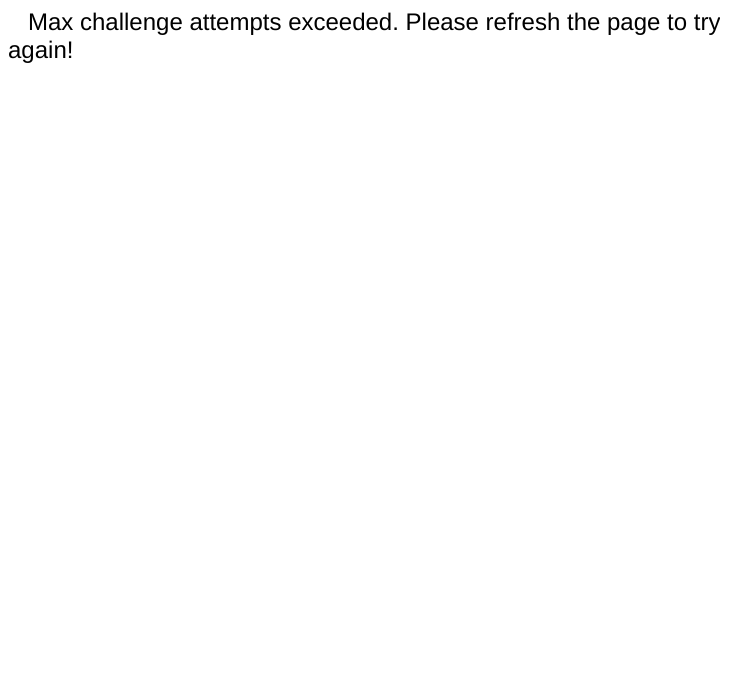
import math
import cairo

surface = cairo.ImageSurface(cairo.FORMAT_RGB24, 750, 678)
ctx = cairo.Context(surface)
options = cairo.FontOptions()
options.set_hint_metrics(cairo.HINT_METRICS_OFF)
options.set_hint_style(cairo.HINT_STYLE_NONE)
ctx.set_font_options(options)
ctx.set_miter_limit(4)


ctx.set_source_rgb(1, 1, 1)
ctx.paint()
ctx.select_font_face("Liberation Sans")
ctx.set_font_size(24)
ctx.set_source_rgb(0, 0, 0)
ctx.move_to(28, 30)
ctx.show_text("Max challenge attempts exceeded. Please refresh the page to try")
ctx.move_to(8, 58)
ctx.show_text("again!")
surface.write_to_png("page.png")
